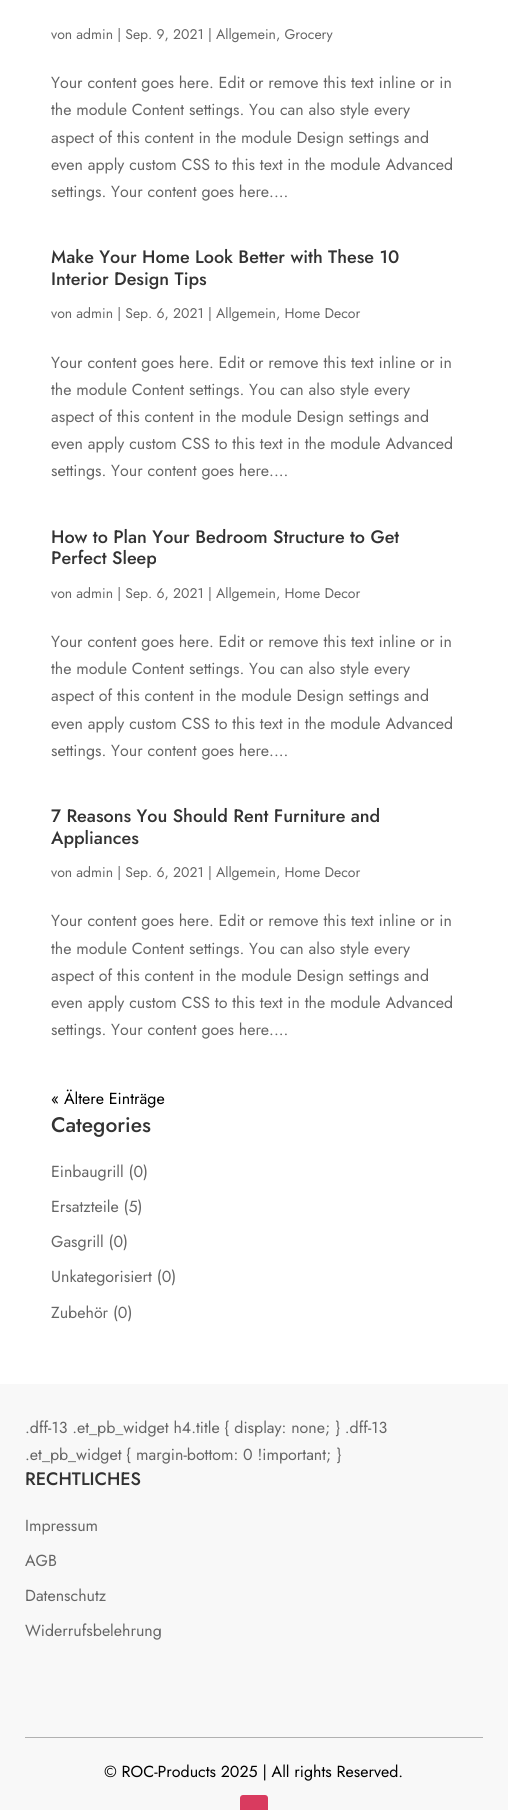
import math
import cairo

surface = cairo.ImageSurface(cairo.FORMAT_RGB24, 508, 1810)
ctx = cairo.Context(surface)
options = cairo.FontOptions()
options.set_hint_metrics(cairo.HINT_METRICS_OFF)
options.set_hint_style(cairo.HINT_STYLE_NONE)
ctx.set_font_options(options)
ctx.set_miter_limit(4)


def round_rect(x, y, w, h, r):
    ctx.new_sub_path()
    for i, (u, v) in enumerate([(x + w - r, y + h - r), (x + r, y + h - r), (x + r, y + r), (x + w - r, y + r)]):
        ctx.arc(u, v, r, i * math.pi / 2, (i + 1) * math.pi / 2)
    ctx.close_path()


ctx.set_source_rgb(1, 1, 1)
ctx.paint()
ctx.select_font_face("Jost")
ctx.set_font_size(14)
ctx.set_source_rgb(0.4, 0.4, 0.4)
ctx.move_to(51, 39)
ctx.show_text("von admin | Sep. 9, 2021 | Allgemein, Grocery")
ctx.set_font_size(16)
ctx.move_to(51, 88)
ctx.show_text("Your content goes here. Edit or remove this text inline or in")
ctx.move_to(51, 115)
ctx.show_text("the module Content settings. You can also style every")
ctx.move_to(51, 143)
ctx.show_text("aspect of this content in the module Design settings and")
ctx.move_to(51, 170)
ctx.show_text("even apply custom CSS to this text in the module Advanced")
ctx.move_to(51, 197)
ctx.show_text("settings. Your content goes here....")
ctx.select_font_face("Jost Medium")
ctx.set_font_size(18)
ctx.set_source_rgb(0.2, 0.2, 0.2)
ctx.move_to(51, 263)
ctx.show_text("Make Your Home Look Better with These 10")
ctx.move_to(51, 285)
ctx.show_text("Interior Design Tips")
ctx.select_font_face("Jost")
ctx.set_font_size(14)
ctx.set_source_rgb(0.4, 0.4, 0.4)
ctx.move_to(51, 318)
ctx.show_text("von admin | Sep. 6, 2021 | Allgemein, Home Decor")
ctx.set_font_size(16)
ctx.move_to(51, 368)
ctx.show_text("Your content goes here. Edit or remove this text inline or in")
ctx.move_to(51, 395)
ctx.show_text("the module Content settings. You can also style every")
ctx.move_to(51, 422)
ctx.show_text("aspect of this content in the module Design settings and")
ctx.move_to(51, 449)
ctx.show_text("even apply custom CSS to this text in the module Advanced")
ctx.move_to(51, 476)
ctx.show_text("settings. Your content goes here....")
ctx.select_font_face("Jost Medium")
ctx.set_font_size(18)
ctx.set_source_rgb(0.2, 0.2, 0.2)
ctx.move_to(51, 543)
ctx.show_text("How to Plan Your Bedroom Structure to Get")
ctx.move_to(51, 564)
ctx.show_text("Perfect Sleep")
ctx.select_font_face("Jost")
ctx.set_font_size(14)
ctx.set_source_rgb(0.4, 0.4, 0.4)
ctx.move_to(51, 598)
ctx.show_text("von admin | Sep. 6, 2021 | Allgemein, Home Decor")
ctx.set_font_size(16)
ctx.move_to(51, 647)
ctx.show_text("Your content goes here. Edit or remove this text inline or in")
ctx.move_to(51, 674)
ctx.show_text("the module Content settings. You can also style every")
ctx.move_to(51, 701)
ctx.show_text("aspect of this content in the module Design settings and")
ctx.move_to(51, 729)
ctx.show_text("even apply custom CSS to this text in the module Advanced")
ctx.move_to(51, 756)
ctx.show_text("settings. Your content goes here....")
ctx.select_font_face("Jost Medium")
ctx.set_font_size(18)
ctx.set_source_rgb(0.2, 0.2, 0.2)
ctx.move_to(51, 822)
ctx.show_text("7 Reasons You Should Rent Furniture and")
ctx.move_to(51, 844)
ctx.show_text("Appliances")
ctx.select_font_face("Jost")
ctx.set_font_size(14)
ctx.set_source_rgb(0.4, 0.4, 0.4)
ctx.move_to(51, 877)
ctx.show_text("von admin | Sep. 6, 2021 | Allgemein, Home Decor")
ctx.set_font_size(16)
ctx.move_to(51, 926)
ctx.show_text("Your content goes here. Edit or remove this text inline or in")
ctx.move_to(51, 954)
ctx.show_text("the module Content settings. You can also style every")
ctx.move_to(51, 981)
ctx.show_text("aspect of this content in the module Design settings and")
ctx.move_to(51, 1008)
ctx.show_text("even apply custom CSS to this text in the module Advanced")
ctx.move_to(51, 1035)
ctx.show_text("settings. Your content goes here....")
ctx.set_source_rgb(0, 0, 0)
ctx.move_to(51, 1104)
ctx.show_text("« Ältere Einträge")
ctx.select_font_face("Jost Medium")
ctx.set_font_size(21)
ctx.set_source_rgb(0.2, 0.2, 0.2)
ctx.move_to(51, 1132)
ctx.show_text("Categories")
ctx.select_font_face("Jost")
ctx.set_font_size(16)
ctx.set_source_rgb(0.4, 0.4, 0.4)
ctx.move_to(51, 1177)
ctx.show_text("Einbaugrill (0)")
ctx.move_to(51, 1212)
ctx.show_text("Ersatzteile (5)")
ctx.move_to(51, 1247)
ctx.show_text("Gasgrill (0)")
ctx.move_to(51, 1282)
ctx.show_text("Unkategorisiert (0)")
ctx.move_to(51, 1318)
ctx.show_text("Zubehör (0)")
ctx.set_source_rgb(0.969, 0.969, 0.969)
ctx.rectangle(0, 1384, 508, 426)
ctx.fill()
ctx.set_source_rgb(0.4, 0.4, 0.4)
ctx.move_to(25, 1433)
ctx.show_text(".dff-13 .et_pb_widget h4.title { display: none; } .dff-13")
ctx.move_to(25, 1460)
ctx.show_text(".et_pb_widget { margin-bottom: 0 !important; }")
ctx.select_font_face("Jost Medium")
ctx.set_font_size(18)
ctx.set_source_rgb(0.2, 0.2, 0.2)
ctx.move_to(25, 1485)
ctx.show_text("RECHTLICHES")
ctx.select_font_face("Jost")
ctx.set_font_size(16)
ctx.set_source_rgb(0.4, 0.4, 0.4)
ctx.move_to(25, 1531)
ctx.show_text("Impressum")
ctx.move_to(25, 1566)
ctx.show_text("AGB")
ctx.move_to(25, 1601)
ctx.show_text("Datenschutz")
ctx.move_to(25, 1636)
ctx.show_text("Widerrufsbelehrung")
ctx.set_source_rgb(0.694, 0.694, 0.694)
ctx.rectangle(25, 1737, 458, 1)
ctx.fill()
ctx.set_source_rgb(0, 0, 0)
ctx.move_to(104, 1777)
ctx.show_text("© ROC-Products 2025 | All rights Reserved.")
ctx.set_source_rgb(0.851, 0.231, 0.373)
round_rect(240, 1795, 28, 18, 3)
ctx.fill()
surface.write_to_png("page.png")
